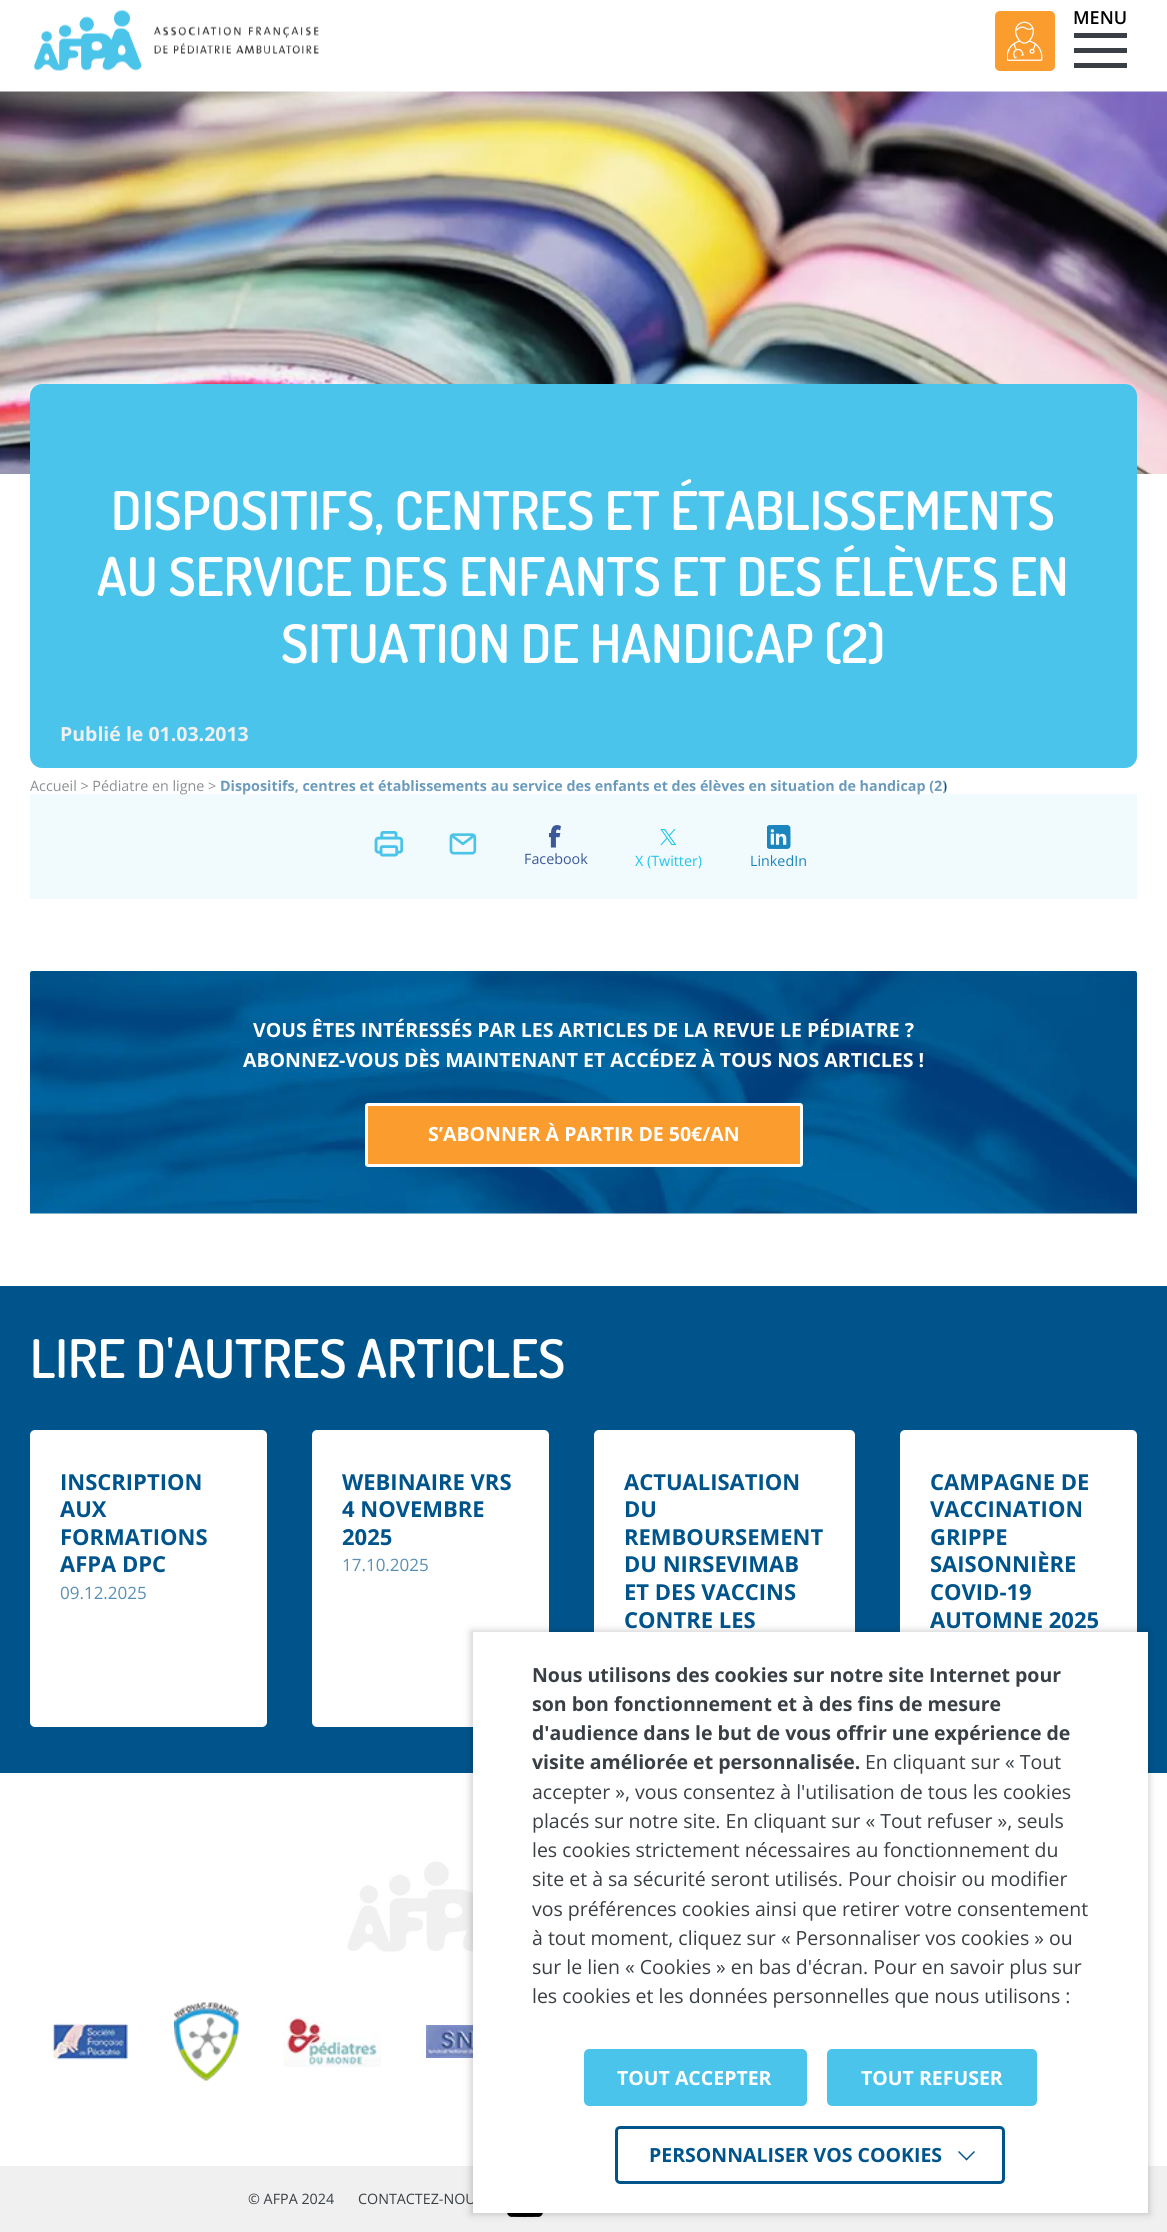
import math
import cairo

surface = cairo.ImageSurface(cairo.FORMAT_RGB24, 1167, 2232)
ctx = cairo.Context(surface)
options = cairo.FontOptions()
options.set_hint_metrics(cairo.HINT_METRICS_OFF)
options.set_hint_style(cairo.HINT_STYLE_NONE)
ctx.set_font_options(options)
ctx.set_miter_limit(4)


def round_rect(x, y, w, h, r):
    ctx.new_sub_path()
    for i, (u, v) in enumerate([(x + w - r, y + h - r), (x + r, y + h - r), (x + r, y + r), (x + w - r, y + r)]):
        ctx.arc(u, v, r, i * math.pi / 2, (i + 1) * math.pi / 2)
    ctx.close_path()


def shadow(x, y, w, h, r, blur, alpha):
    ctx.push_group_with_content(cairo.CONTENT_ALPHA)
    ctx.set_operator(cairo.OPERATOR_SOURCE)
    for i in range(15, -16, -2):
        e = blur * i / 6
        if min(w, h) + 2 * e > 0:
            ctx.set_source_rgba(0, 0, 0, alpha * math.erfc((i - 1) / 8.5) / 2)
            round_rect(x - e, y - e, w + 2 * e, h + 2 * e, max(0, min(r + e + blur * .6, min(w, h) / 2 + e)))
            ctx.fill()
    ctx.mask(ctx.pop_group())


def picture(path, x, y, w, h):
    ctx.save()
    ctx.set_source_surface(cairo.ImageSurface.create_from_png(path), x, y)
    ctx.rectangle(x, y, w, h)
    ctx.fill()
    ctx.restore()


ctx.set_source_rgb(1, 1, 1)
ctx.paint()
picture("img1.png", 34, 10, 285, 61)
ctx.set_source_rgb(0.984, 0.612, 0.184)
round_rect(995, 11, 60, 60, 5)
ctx.fill()
picture("img2.png", 1007, 21, 36, 40)
ctx.select_font_face("Open Sans SemiBold")
ctx.set_font_size(18)
ctx.set_source_rgb(0, 0, 0)
ctx.move_to(1073, 24)
ctx.show_text("MENU")
ctx.set_source_rgb(0.224, 0.247, 0.267)
ctx.rectangle(1074, 33, 53, 5)
ctx.fill()
ctx.rectangle(1074, 48, 53, 5)
ctx.fill()
ctx.rectangle(1074, 63, 53, 5)
ctx.fill()
picture("img3.png", 0, 91, 1167, 383)
ctx.set_source_rgb(0.294, 0.769, 0.918)
round_rect(30, 384, 1107, 384, 12)
ctx.fill()
ctx.select_font_face("Dosis SemiBold")
ctx.set_font_size(53.25)
ctx.set_source_rgb(1, 1, 1)
ctx.move_to(111, 530)
ctx.show_text("DISPOSITIFS, CENTRES ET ÉTABLISSEMENTS")
ctx.move_to(97, 596)
ctx.show_text("AU SERVICE DES ENFANTS ET DES ÉLÈVES EN")
ctx.move_to(281, 663)
ctx.show_text("SITUATION DE HANDICAP (2)")
ctx.select_font_face("Open Sans", cairo.FONT_SLANT_NORMAL, cairo.FONT_WEIGHT_BOLD)
ctx.set_font_size(19.5)
ctx.set_source_rgb(0.941, 0.941, 0.941)
ctx.move_to(60, 741)
ctx.show_text("Publié le 01.03.2013")
ctx.select_font_face("Open Sans")
ctx.set_font_size(14.3)
ctx.set_source_rgb(0.224, 0.247, 0.267)
ctx.move_to(30, 791)
ctx.show_text("Accueil > Pédiatre en ligne >")
ctx.select_font_face("Open Sans", cairo.FONT_SLANT_NORMAL, cairo.FONT_WEIGHT_BOLD)
ctx.set_source_rgb(0, 0.329, 0.549)
ctx.move_to(220, 791)
ctx.show_text("Dispositifs, centres et établissements au service des enfants et des élèves en situation de handicap (2)")
gradient = cairo.LinearGradient(584, 971, 584, 670)
gradient.add_color_stop_rgba(0.34, 1, 1, 1, 1)
gradient.add_color_stop_rgba(0.81, 1, 1, 1, 0)
ctx.set_source(gradient)
ctx.rectangle(30, 780, 915, 15)
ctx.fill()
ctx.set_source_rgba(0.302, 0.773, 0.918, 0.08)
ctx.rectangle(30, 794, 1107, 105)
ctx.fill()
picture("img4.png", 374, 831, 30, 26)
picture("img5.png", 449, 833, 28, 22)
picture("img6.png", 549, 825, 12, 23)
ctx.select_font_face("Open Sans")
ctx.set_source_rgb(0.231, 0.349, 0.596)
ctx.move_to(524, 864)
ctx.show_text("Facebook")
picture("img7.png", 660, 829, 17, 16)
ctx.set_source_rgb(0.122, 0.769, 0.925)
ctx.move_to(635, 866)
ctx.show_text("X (Twitter)")
picture("img8.png", 767, 825, 24, 24)
ctx.set_source_rgb(0.106, 0.522, 0.741)
ctx.move_to(750, 866)
ctx.show_text("LinkedIn")
picture("img9.png", 30, 971, 1107, 243)
ctx.select_font_face("Open Sans", cairo.FONT_SLANT_NORMAL, cairo.FONT_WEIGHT_BOLD)
ctx.set_font_size(19.5)
ctx.set_source_rgb(1, 1, 1)
ctx.move_to(253, 1037)
ctx.show_text("VOUS ÊTES INTÉRESSÉS PAR LES ARTICLES DE LA REVUE LE PÉDIATRE ?")
ctx.move_to(243, 1067)
ctx.show_text("ABONNEZ-VOUS DÈS MAINTENANT ET ACCÉDEZ À TOUS NOS ARTICLES !")
ctx.set_source_rgb(0.984, 0.612, 0.184)
round_rect(366.5, 1104.5, 435, 61, 1.5)
ctx.fill_preserve()
ctx.set_source_rgb(1, 1, 1)
ctx.set_line_width(3)
ctx.stroke()
ctx.move_to(428, 1141)
ctx.show_text("S’ABONNER À PARTIR DE 50€/AN")
ctx.set_source_rgb(0, 0.329, 0.549)
ctx.rectangle(0, 1286, 1167, 487)
ctx.fill()
ctx.select_font_face("Dosis SemiBold")
ctx.set_font_size(53.25)
ctx.set_source_rgb(1, 1, 1)
ctx.move_to(30, 1378)
ctx.show_text("LIRE D'AUTRES ARTICLES")
round_rect(30, 1430, 237, 297, 5)
ctx.fill()
ctx.select_font_face("Open Sans", cairo.FONT_SLANT_NORMAL, cairo.FONT_WEIGHT_BOLD)
ctx.set_font_size(22)
ctx.set_source_rgb(0, 0.329, 0.549)
ctx.move_to(60, 1490)
ctx.show_text("INSCRIPTION")
ctx.move_to(60, 1517)
ctx.show_text("AUX")
ctx.move_to(60, 1545)
ctx.show_text("FORMATIONS")
ctx.move_to(60, 1572)
ctx.show_text("AFPA DPC")
ctx.select_font_face("Open Sans")
ctx.set_font_size(17)
ctx.set_source_rgb(0.349, 0.565, 0.706)
ctx.move_to(60, 1599)
ctx.show_text("09.12.2025")
ctx.set_source_rgb(1, 1, 1)
round_rect(312, 1430, 237, 297, 5)
ctx.fill()
ctx.select_font_face("Open Sans", cairo.FONT_SLANT_NORMAL, cairo.FONT_WEIGHT_BOLD)
ctx.set_font_size(22)
ctx.set_source_rgb(0, 0.329, 0.549)
ctx.move_to(342, 1490)
ctx.show_text("WEBINAIRE VRS")
ctx.move_to(342, 1517)
ctx.show_text("4 NOVEMBRE")
ctx.move_to(342, 1545)
ctx.show_text("2025")
ctx.select_font_face("Open Sans")
ctx.set_font_size(17)
ctx.set_source_rgb(0.349, 0.565, 0.706)
ctx.move_to(342, 1571)
ctx.show_text("17.10.2025")
ctx.set_source_rgb(1, 1, 1)
round_rect(594, 1430, 261, 297, 5)
ctx.fill()
ctx.select_font_face("Open Sans", cairo.FONT_SLANT_NORMAL, cairo.FONT_WEIGHT_BOLD)
ctx.set_font_size(22)
ctx.set_source_rgb(0, 0.329, 0.549)
ctx.move_to(624, 1490)
ctx.show_text("ACTUALISATION")
ctx.move_to(624, 1517)
ctx.show_text("DU")
ctx.move_to(624, 1545)
ctx.show_text("REMBOURSEMENT")
ctx.move_to(624, 1572)
ctx.show_text("DU NIRSEVIMAB")
ctx.move_to(624, 1600)
ctx.show_text("ET DES VACCINS")
ctx.move_to(624, 1628)
ctx.show_text("CONTRE LES")
ctx.set_source_rgb(1, 1, 1)
round_rect(900, 1430, 237, 297, 5)
ctx.fill()
ctx.set_source_rgb(0, 0.329, 0.549)
ctx.move_to(930, 1490)
ctx.show_text("CAMPAGNE DE")
ctx.move_to(930, 1517)
ctx.show_text("VACCINATION")
ctx.move_to(930, 1545)
ctx.show_text("GRIPPE")
ctx.move_to(930, 1572)
ctx.show_text("SAISONNIÈRE")
ctx.move_to(930, 1600)
ctx.show_text("COVID-19")
ctx.move_to(930, 1628)
ctx.show_text("AUTOMNE 2025")
picture("img10.png", 347, 1859, 126, 93)
picture("img14.png", 426, 2025, 47, 33)
ctx.set_source_rgb(0.941, 0.941, 0.941)
ctx.rectangle(0, 2166, 1167, 66)
ctx.fill()
picture("img15.png", 507, 2213, 36, 4)
ctx.set_source_rgb(0, 0, 0)
shadow(471, 1631, 678, 583, 0, 4, 0.2)
ctx.select_font_face("Open Sans")
ctx.set_font_size(14.3)
ctx.set_source_rgb(0.224, 0.247, 0.267)
ctx.move_to(358, 2204)
ctx.show_text("CONTACTEZ-NOU")
ctx.set_source_rgb(1, 1, 1)
ctx.rectangle(473, 1632, 675, 581)
ctx.fill()
ctx.select_font_face("Open Sans", cairo.FONT_SLANT_NORMAL, cairo.FONT_WEIGHT_BOLD)
ctx.set_font_size(19.5)
ctx.set_source_rgb(0.224, 0.247, 0.267)
ctx.move_to(532, 1682)
ctx.show_text("Nous utilisons des cookies sur notre site Internet pour")
ctx.move_to(532, 1711)
ctx.show_text("son bon fonctionnement et à des fins de mesure")
ctx.move_to(532, 1740)
ctx.show_text("d'audience dans le but de vous offrir une expérience de")
ctx.move_to(532, 1769)
ctx.show_text("visite améliorée et personnalisée.")
ctx.select_font_face("Open Sans")
ctx.move_to(865, 1769)
ctx.show_text("En cliquant sur « Tout")
ctx.move_to(532, 1799)
ctx.show_text("accepter », vous consentez à l'utilisation de tous les cookies")
ctx.move_to(532, 1828)
ctx.show_text("placés sur notre site. En cliquant sur « Tout refuser », seuls")
ctx.move_to(532, 1857)
ctx.show_text("les cookies strictement nécessaires au fonctionnement du")
ctx.move_to(532, 1886)
ctx.show_text("site et à sa sécurité seront utilisés. Pour choisir ou modifier")
ctx.move_to(532, 1916)
ctx.show_text("vos préférences cookies ainsi que retirer votre consentement")
ctx.move_to(532, 1945)
ctx.show_text("à tout moment, cliquez sur « Personnaliser vos cookies » ou")
ctx.move_to(532, 1974)
ctx.show_text("sur le lien « Cookies » en bas d'écran. Pour en savoir plus sur")
ctx.move_to(532, 2003)
ctx.show_text("les cookies et les données personnelles que nous utilisons :")
ctx.set_source_rgb(0.294, 0.769, 0.918)
round_rect(585.5, 2050.5, 220, 54, 3.5)
ctx.fill_preserve()
ctx.stroke()
ctx.select_font_face("Open Sans", cairo.FONT_SLANT_NORMAL, cairo.FONT_WEIGHT_BOLD)
ctx.set_source_rgb(1, 1, 1)
ctx.move_to(617, 2085)
ctx.show_text("TOUT ACCEPTER")
ctx.set_source_rgb(0.294, 0.769, 0.918)
round_rect(828.5, 2050.5, 207, 54, 3.5)
ctx.fill_preserve()
ctx.stroke()
ctx.set_source_rgb(1, 1, 1)
ctx.move_to(861, 2085)
ctx.show_text("TOUT REFUSER")
round_rect(616.5, 2127.5, 387, 55, 3.5)
ctx.set_source_rgb(0, 0.329, 0.549)
ctx.stroke()
ctx.move_to(649, 2162)
ctx.show_text("PERSONNALISER VOS COOKIES")
ctx.new_path()
ctx.move_to(975, 2152)
ctx.line_to(966.5, 2160.5)
ctx.line_to(965.5, 2159.5)
ctx.line_to(974, 2151)
ctx.close_path()
ctx.fill()
ctx.new_path()
ctx.move_to(967.5, 2159.5)
ctx.line_to(966.5, 2160.5)
ctx.line_to(958, 2152)
ctx.line_to(959, 2151)
ctx.close_path()
ctx.fill()
picture("img11.png", 52, 2023, 77, 37)
picture("img12.png", 174, 2002, 65, 79)
picture("img13.png", 283, 2016, 98, 51)
ctx.select_font_face("Open Sans")
ctx.set_font_size(14.3)
ctx.set_source_rgb(0.224, 0.247, 0.267)
ctx.move_to(248, 2204)
ctx.show_text("© AFPA 2024")
surface.write_to_png("page.png")
